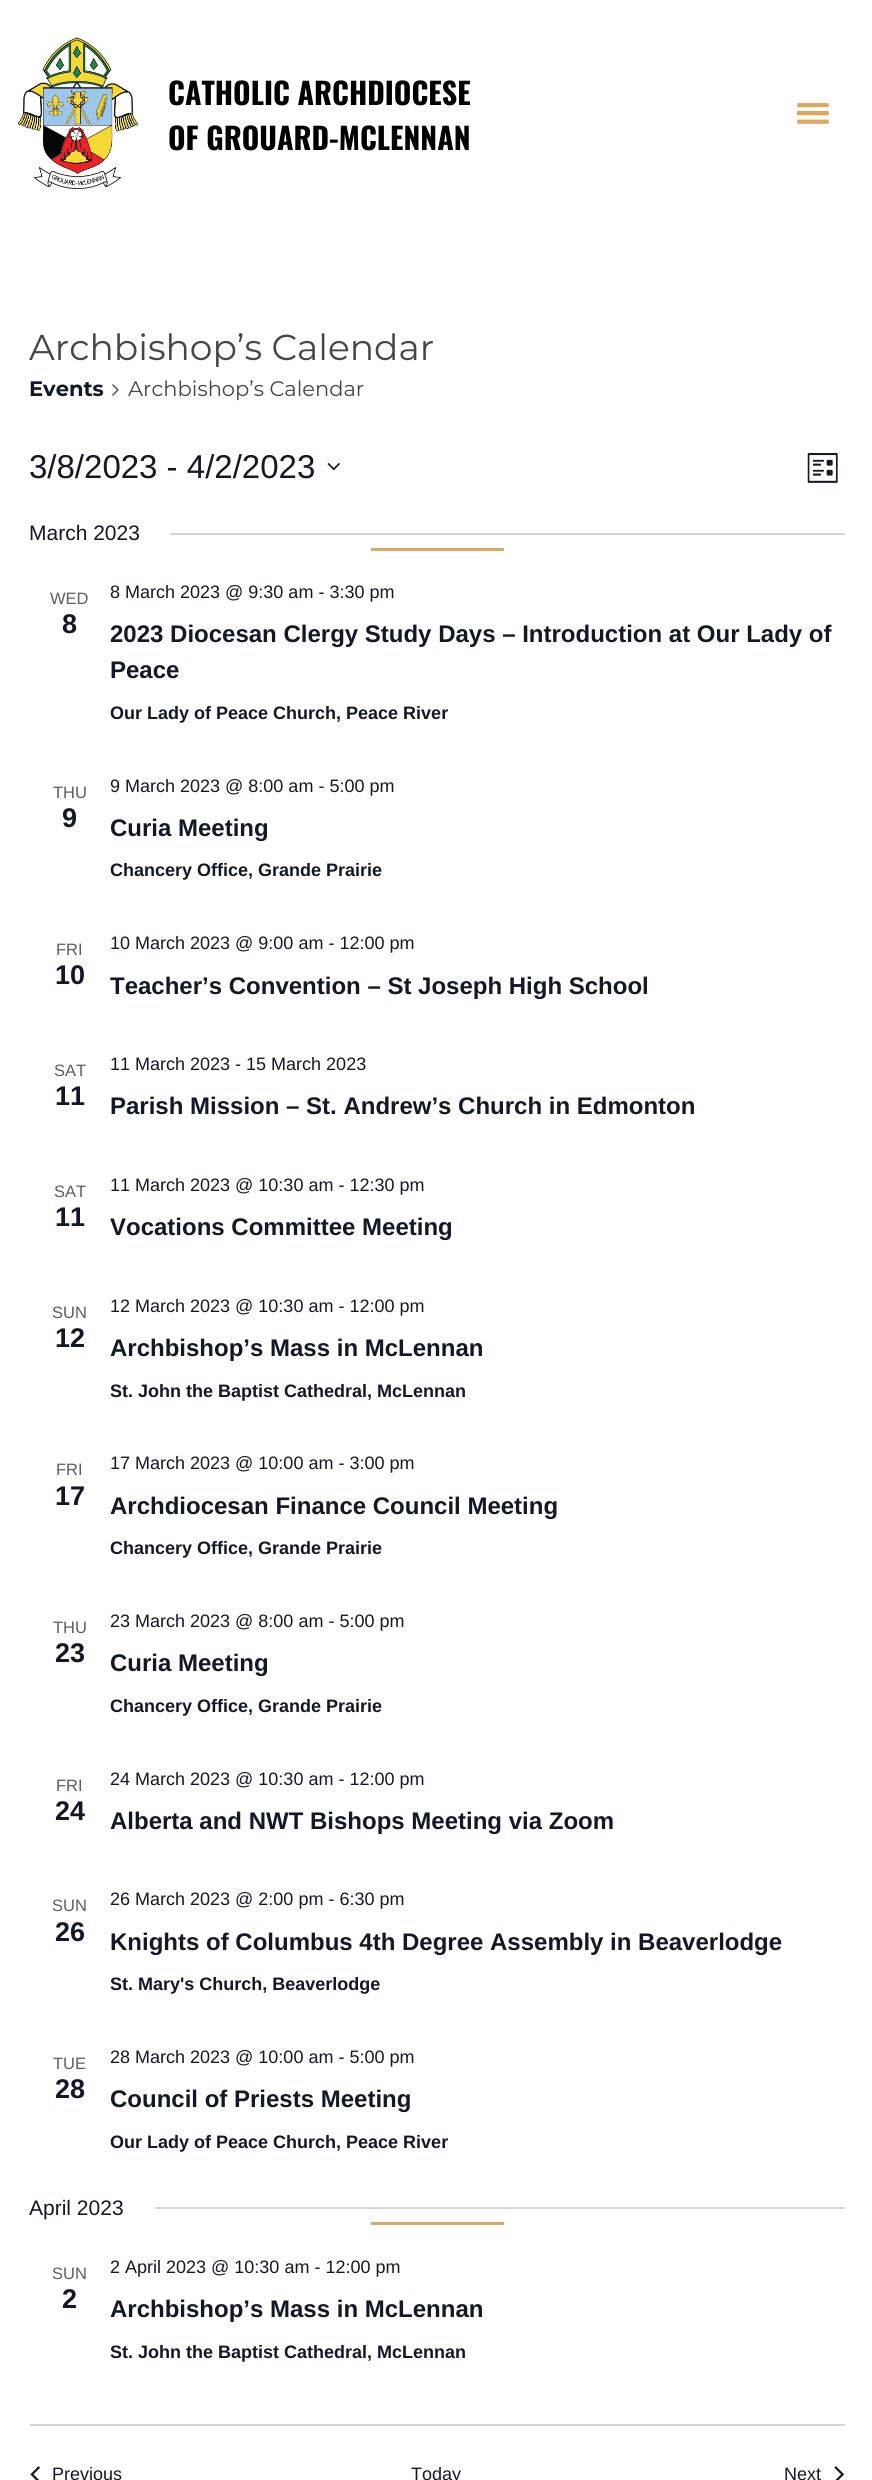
import math
import cairo

surface = cairo.ImageSurface(cairo.FORMAT_RGB24, 872, 2480)
ctx = cairo.Context(surface)
options = cairo.FontOptions()
options.set_hint_metrics(cairo.HINT_METRICS_OFF)
options.set_hint_style(cairo.HINT_STYLE_NONE)
ctx.set_font_options(options)
ctx.set_miter_limit(4)


def picture(path, x, y, w, h):
    ctx.save()
    ctx.set_source_surface(cairo.ImageSurface.create_from_png(path), x, y)
    ctx.rectangle(x, y, w, h)
    ctx.fill()
    ctx.restore()


ctx.set_source_rgb(1, 1, 1)
ctx.paint()
picture("img1.png", 18, 37, 120, 152)
ctx.select_font_face("Oswald", cairo.FONT_SLANT_NORMAL, cairo.FONT_WEIGHT_BOLD)
ctx.set_font_size(30)
ctx.set_source_rgb(0, 0, 0)
ctx.move_to(168, 105)
ctx.show_text("CATHOLIC ARCHDIOCESE")
ctx.move_to(168, 150)
ctx.show_text("OF GROUARD-MCLENNAN")
picture("img2.png", 797, 103, 32, 21)
ctx.select_font_face("Montserrat")
ctx.set_font_size(36)
ctx.set_source_rgb(0.275, 0.275, 0.275)
ctx.move_to(29, 360)
ctx.show_text("Archbishop’s Calendar")
ctx.select_font_face("Montserrat", cairo.FONT_SLANT_NORMAL, cairo.FONT_WEIGHT_BOLD)
ctx.set_font_size(21)
ctx.set_source_rgb(0.078, 0.094, 0.153)
ctx.move_to(29, 396)
ctx.show_text("Events")
picture("img3.png", 112, 384, 7, 12)
ctx.select_font_face("Montserrat")
ctx.set_source_rgb(0.275, 0.275, 0.275)
ctx.move_to(128, 396)
ctx.show_text("Archbishop’s Calendar")
ctx.select_font_face("Liberation Sans")
ctx.set_font_size(33)
ctx.set_source_rgb(0.078, 0.094, 0.153)
ctx.move_to(29, 478)
ctx.show_text("3/8/2023 - 4/2/2023")
picture("img4.png", 327, 462, 13, 9)
picture("img5.png", 807, 453, 31, 30)
ctx.set_font_size(21)
ctx.move_to(29, 540)
ctx.show_text("March 2023")
ctx.set_source_rgb(0.835, 0.835, 0.835)
ctx.rectangle(170, 533, 675, 2)
ctx.fill()
ctx.set_source_rgb(0.859, 0.659, 0.376)
ctx.rectangle(371, 548, 133, 3)
ctx.fill()
ctx.set_font_size(16.5)
ctx.set_source_rgb(0.365, 0.365, 0.365)
ctx.move_to(50, 604)
ctx.show_text("WED")
ctx.select_font_face("Liberation Sans", cairo.FONT_SLANT_NORMAL, cairo.FONT_WEIGHT_BOLD)
ctx.set_font_size(27)
ctx.set_source_rgb(0.078, 0.094, 0.153)
ctx.move_to(62, 633)
ctx.show_text("8")
ctx.select_font_face("Liberation Sans")
ctx.set_font_size(18)
ctx.move_to(110, 598)
ctx.show_text("8 March 2023 @ 9:30 am - 3:30 pm")
ctx.select_font_face("Liberation Sans", cairo.FONT_SLANT_NORMAL, cairo.FONT_WEIGHT_BOLD)
ctx.set_font_size(24)
ctx.move_to(110, 642)
ctx.show_text("2023 Diocesan Clergy Study Days – Introduction at Our Lady of")
ctx.move_to(110, 678)
ctx.show_text("Peace")
ctx.set_font_size(18)
ctx.move_to(110, 719)
ctx.show_text("Our Lady of Peace Church, Peace River")
ctx.select_font_face("Liberation Sans")
ctx.set_font_size(16.5)
ctx.set_source_rgb(0.365, 0.365, 0.365)
ctx.move_to(53, 798)
ctx.show_text("THU")
ctx.select_font_face("Liberation Sans", cairo.FONT_SLANT_NORMAL, cairo.FONT_WEIGHT_BOLD)
ctx.set_font_size(27)
ctx.set_source_rgb(0.078, 0.094, 0.153)
ctx.move_to(62, 827)
ctx.show_text("9")
ctx.select_font_face("Liberation Sans")
ctx.set_font_size(18)
ctx.move_to(110, 792)
ctx.show_text("9 March 2023 @ 8:00 am - 5:00 pm")
ctx.select_font_face("Liberation Sans", cairo.FONT_SLANT_NORMAL, cairo.FONT_WEIGHT_BOLD)
ctx.set_font_size(24)
ctx.move_to(110, 836)
ctx.show_text("Curia Meeting")
ctx.set_font_size(18)
ctx.move_to(110, 876)
ctx.show_text("Chancery Office, Grande Prairie")
ctx.select_font_face("Liberation Sans")
ctx.set_font_size(16.5)
ctx.set_source_rgb(0.365, 0.365, 0.365)
ctx.move_to(56, 955)
ctx.show_text("FRI")
ctx.select_font_face("Liberation Sans", cairo.FONT_SLANT_NORMAL, cairo.FONT_WEIGHT_BOLD)
ctx.set_font_size(27)
ctx.set_source_rgb(0.078, 0.094, 0.153)
ctx.move_to(55, 984)
ctx.show_text("10")
ctx.select_font_face("Liberation Sans")
ctx.set_font_size(18)
ctx.move_to(110, 949)
ctx.show_text("10 March 2023 @ 9:00 am - 12:00 pm")
ctx.select_font_face("Liberation Sans", cairo.FONT_SLANT_NORMAL, cairo.FONT_WEIGHT_BOLD)
ctx.set_font_size(24)
ctx.move_to(110, 994)
ctx.show_text("Teacher’s Convention – St Joseph High School")
ctx.select_font_face("Liberation Sans")
ctx.set_font_size(16.5)
ctx.set_source_rgb(0.365, 0.365, 0.365)
ctx.move_to(54, 1076)
ctx.show_text("SAT")
ctx.select_font_face("Liberation Sans", cairo.FONT_SLANT_NORMAL, cairo.FONT_WEIGHT_BOLD)
ctx.set_font_size(27)
ctx.set_source_rgb(0.078, 0.094, 0.153)
ctx.move_to(55, 1105)
ctx.show_text("11")
ctx.select_font_face("Liberation Sans")
ctx.set_font_size(18)
ctx.move_to(110, 1070)
ctx.show_text("11 March 2023 - 15 March 2023")
ctx.select_font_face("Liberation Sans", cairo.FONT_SLANT_NORMAL, cairo.FONT_WEIGHT_BOLD)
ctx.set_font_size(24)
ctx.move_to(110, 1114)
ctx.show_text("Parish Mission – St. Andrew’s Church in Edmonton")
ctx.select_font_face("Liberation Sans")
ctx.set_font_size(16.5)
ctx.set_source_rgb(0.365, 0.365, 0.365)
ctx.move_to(54, 1197)
ctx.show_text("SAT")
ctx.select_font_face("Liberation Sans", cairo.FONT_SLANT_NORMAL, cairo.FONT_WEIGHT_BOLD)
ctx.set_font_size(27)
ctx.set_source_rgb(0.078, 0.094, 0.153)
ctx.move_to(55, 1226)
ctx.show_text("11")
ctx.select_font_face("Liberation Sans")
ctx.set_font_size(18)
ctx.move_to(110, 1191)
ctx.show_text("11 March 2023 @ 10:30 am - 12:30 pm")
ctx.select_font_face("Liberation Sans", cairo.FONT_SLANT_NORMAL, cairo.FONT_WEIGHT_BOLD)
ctx.set_font_size(24)
ctx.move_to(110, 1235)
ctx.show_text("Vocations Committee Meeting")
ctx.select_font_face("Liberation Sans")
ctx.set_font_size(16.5)
ctx.set_source_rgb(0.365, 0.365, 0.365)
ctx.move_to(52, 1318)
ctx.show_text("SUN")
ctx.select_font_face("Liberation Sans", cairo.FONT_SLANT_NORMAL, cairo.FONT_WEIGHT_BOLD)
ctx.set_font_size(27)
ctx.set_source_rgb(0.078, 0.094, 0.153)
ctx.move_to(55, 1347)
ctx.show_text("12")
ctx.select_font_face("Liberation Sans")
ctx.set_font_size(18)
ctx.move_to(110, 1312)
ctx.show_text("12 March 2023 @ 10:30 am - 12:00 pm")
ctx.select_font_face("Liberation Sans", cairo.FONT_SLANT_NORMAL, cairo.FONT_WEIGHT_BOLD)
ctx.set_font_size(24)
ctx.move_to(110, 1356)
ctx.show_text("Archbishop’s Mass in McLennan")
ctx.set_font_size(18)
ctx.move_to(110, 1397)
ctx.show_text("St. John the Baptist Cathedral, McLennan")
ctx.select_font_face("Liberation Sans")
ctx.set_font_size(16.5)
ctx.set_source_rgb(0.365, 0.365, 0.365)
ctx.move_to(56, 1475)
ctx.show_text("FRI")
ctx.select_font_face("Liberation Sans", cairo.FONT_SLANT_NORMAL, cairo.FONT_WEIGHT_BOLD)
ctx.set_font_size(27)
ctx.set_source_rgb(0.078, 0.094, 0.153)
ctx.move_to(55, 1505)
ctx.show_text("17")
ctx.select_font_face("Liberation Sans")
ctx.set_font_size(18)
ctx.move_to(110, 1469)
ctx.show_text("17 March 2023 @ 10:00 am - 3:00 pm")
ctx.select_font_face("Liberation Sans", cairo.FONT_SLANT_NORMAL, cairo.FONT_WEIGHT_BOLD)
ctx.set_font_size(24)
ctx.move_to(110, 1514)
ctx.show_text("Archdiocesan Finance Council Meeting")
ctx.set_font_size(18)
ctx.move_to(110, 1554)
ctx.show_text("Chancery Office, Grande Prairie")
ctx.select_font_face("Liberation Sans")
ctx.set_font_size(16.5)
ctx.set_source_rgb(0.365, 0.365, 0.365)
ctx.move_to(53, 1633)
ctx.show_text("THU")
ctx.select_font_face("Liberation Sans", cairo.FONT_SLANT_NORMAL, cairo.FONT_WEIGHT_BOLD)
ctx.set_font_size(27)
ctx.set_source_rgb(0.078, 0.094, 0.153)
ctx.move_to(55, 1662)
ctx.show_text("23")
ctx.select_font_face("Liberation Sans")
ctx.set_font_size(18)
ctx.move_to(110, 1627)
ctx.show_text("23 March 2023 @ 8:00 am - 5:00 pm")
ctx.select_font_face("Liberation Sans", cairo.FONT_SLANT_NORMAL, cairo.FONT_WEIGHT_BOLD)
ctx.set_font_size(24)
ctx.move_to(110, 1671)
ctx.show_text("Curia Meeting")
ctx.set_font_size(18)
ctx.move_to(110, 1712)
ctx.show_text("Chancery Office, Grande Prairie")
ctx.select_font_face("Liberation Sans")
ctx.set_font_size(16.5)
ctx.set_source_rgb(0.365, 0.365, 0.365)
ctx.move_to(56, 1791)
ctx.show_text("FRI")
ctx.select_font_face("Liberation Sans", cairo.FONT_SLANT_NORMAL, cairo.FONT_WEIGHT_BOLD)
ctx.set_font_size(27)
ctx.set_source_rgb(0.078, 0.094, 0.153)
ctx.move_to(55, 1820)
ctx.show_text("24")
ctx.select_font_face("Liberation Sans")
ctx.set_font_size(18)
ctx.move_to(110, 1785)
ctx.show_text("24 March 2023 @ 10:30 am - 12:00 pm")
ctx.select_font_face("Liberation Sans", cairo.FONT_SLANT_NORMAL, cairo.FONT_WEIGHT_BOLD)
ctx.set_font_size(24)
ctx.move_to(110, 1829)
ctx.show_text("Alberta and NWT Bishops Meeting via Zoom")
ctx.select_font_face("Liberation Sans")
ctx.set_font_size(16.5)
ctx.set_source_rgb(0.365, 0.365, 0.365)
ctx.move_to(52, 1911)
ctx.show_text("SUN")
ctx.select_font_face("Liberation Sans", cairo.FONT_SLANT_NORMAL, cairo.FONT_WEIGHT_BOLD)
ctx.set_font_size(27)
ctx.set_source_rgb(0.078, 0.094, 0.153)
ctx.move_to(55, 1941)
ctx.show_text("26")
ctx.select_font_face("Liberation Sans")
ctx.set_font_size(18)
ctx.move_to(110, 1905)
ctx.show_text("26 March 2023 @ 2:00 pm - 6:30 pm")
ctx.select_font_face("Liberation Sans", cairo.FONT_SLANT_NORMAL, cairo.FONT_WEIGHT_BOLD)
ctx.set_font_size(24)
ctx.move_to(110, 1950)
ctx.show_text("Knights of Columbus 4th Degree Assembly in Beaverlodge")
ctx.set_font_size(18)
ctx.move_to(110, 1990)
ctx.show_text("St. Mary's Church, Beaverlodge")
ctx.select_font_face("Liberation Sans")
ctx.set_font_size(16.5)
ctx.set_source_rgb(0.365, 0.365, 0.365)
ctx.move_to(53, 2069)
ctx.show_text("TUE")
ctx.select_font_face("Liberation Sans", cairo.FONT_SLANT_NORMAL, cairo.FONT_WEIGHT_BOLD)
ctx.set_font_size(27)
ctx.set_source_rgb(0.078, 0.094, 0.153)
ctx.move_to(55, 2098)
ctx.show_text("28")
ctx.select_font_face("Liberation Sans")
ctx.set_font_size(18)
ctx.move_to(110, 2063)
ctx.show_text("28 March 2023 @ 10:00 am - 5:00 pm")
ctx.select_font_face("Liberation Sans", cairo.FONT_SLANT_NORMAL, cairo.FONT_WEIGHT_BOLD)
ctx.set_font_size(24)
ctx.move_to(110, 2107)
ctx.show_text("Council of Priests Meeting")
ctx.set_font_size(18)
ctx.move_to(110, 2148)
ctx.show_text("Our Lady of Peace Church, Peace River")
ctx.select_font_face("Liberation Sans")
ctx.set_font_size(21)
ctx.move_to(29, 2215)
ctx.show_text("April 2023")
ctx.set_source_rgb(0.835, 0.835, 0.835)
ctx.rectangle(155, 2207, 690, 2)
ctx.fill()
ctx.set_source_rgb(0.859, 0.659, 0.376)
ctx.rectangle(371, 2222, 133, 3)
ctx.fill()
ctx.set_font_size(16.5)
ctx.set_source_rgb(0.365, 0.365, 0.365)
ctx.move_to(52, 2279)
ctx.show_text("SUN")
ctx.select_font_face("Liberation Sans", cairo.FONT_SLANT_NORMAL, cairo.FONT_WEIGHT_BOLD)
ctx.set_font_size(27)
ctx.set_source_rgb(0.078, 0.094, 0.153)
ctx.move_to(62, 2308)
ctx.show_text("2")
ctx.select_font_face("Liberation Sans")
ctx.set_font_size(18)
ctx.move_to(110, 2273)
ctx.show_text("2 April 2023 @ 10:30 am - 12:00 pm")
ctx.select_font_face("Liberation Sans", cairo.FONT_SLANT_NORMAL, cairo.FONT_WEIGHT_BOLD)
ctx.set_font_size(24)
ctx.move_to(110, 2317)
ctx.show_text("Archbishop’s Mass in McLennan")
ctx.set_font_size(18)
ctx.move_to(110, 2358)
ctx.show_text("St. John the Baptist Cathedral, McLennan")
ctx.set_source_rgb(0.835, 0.835, 0.835)
ctx.rectangle(30, 2424, 815, 2)
ctx.fill()
picture("img6.png", 30, 2466, 11, 14)
ctx.select_font_face("Liberation Sans")
ctx.set_source_rgb(0.078, 0.094, 0.153)
ctx.move_to(52, 2480)
ctx.show_text("Previous")
ctx.move_to(411, 2480)
ctx.show_text("Today")
ctx.move_to(784, 2480)
ctx.show_text("Next")
picture("img7.png", 834, 2466, 11, 14)
surface.write_to_png("page.png")
